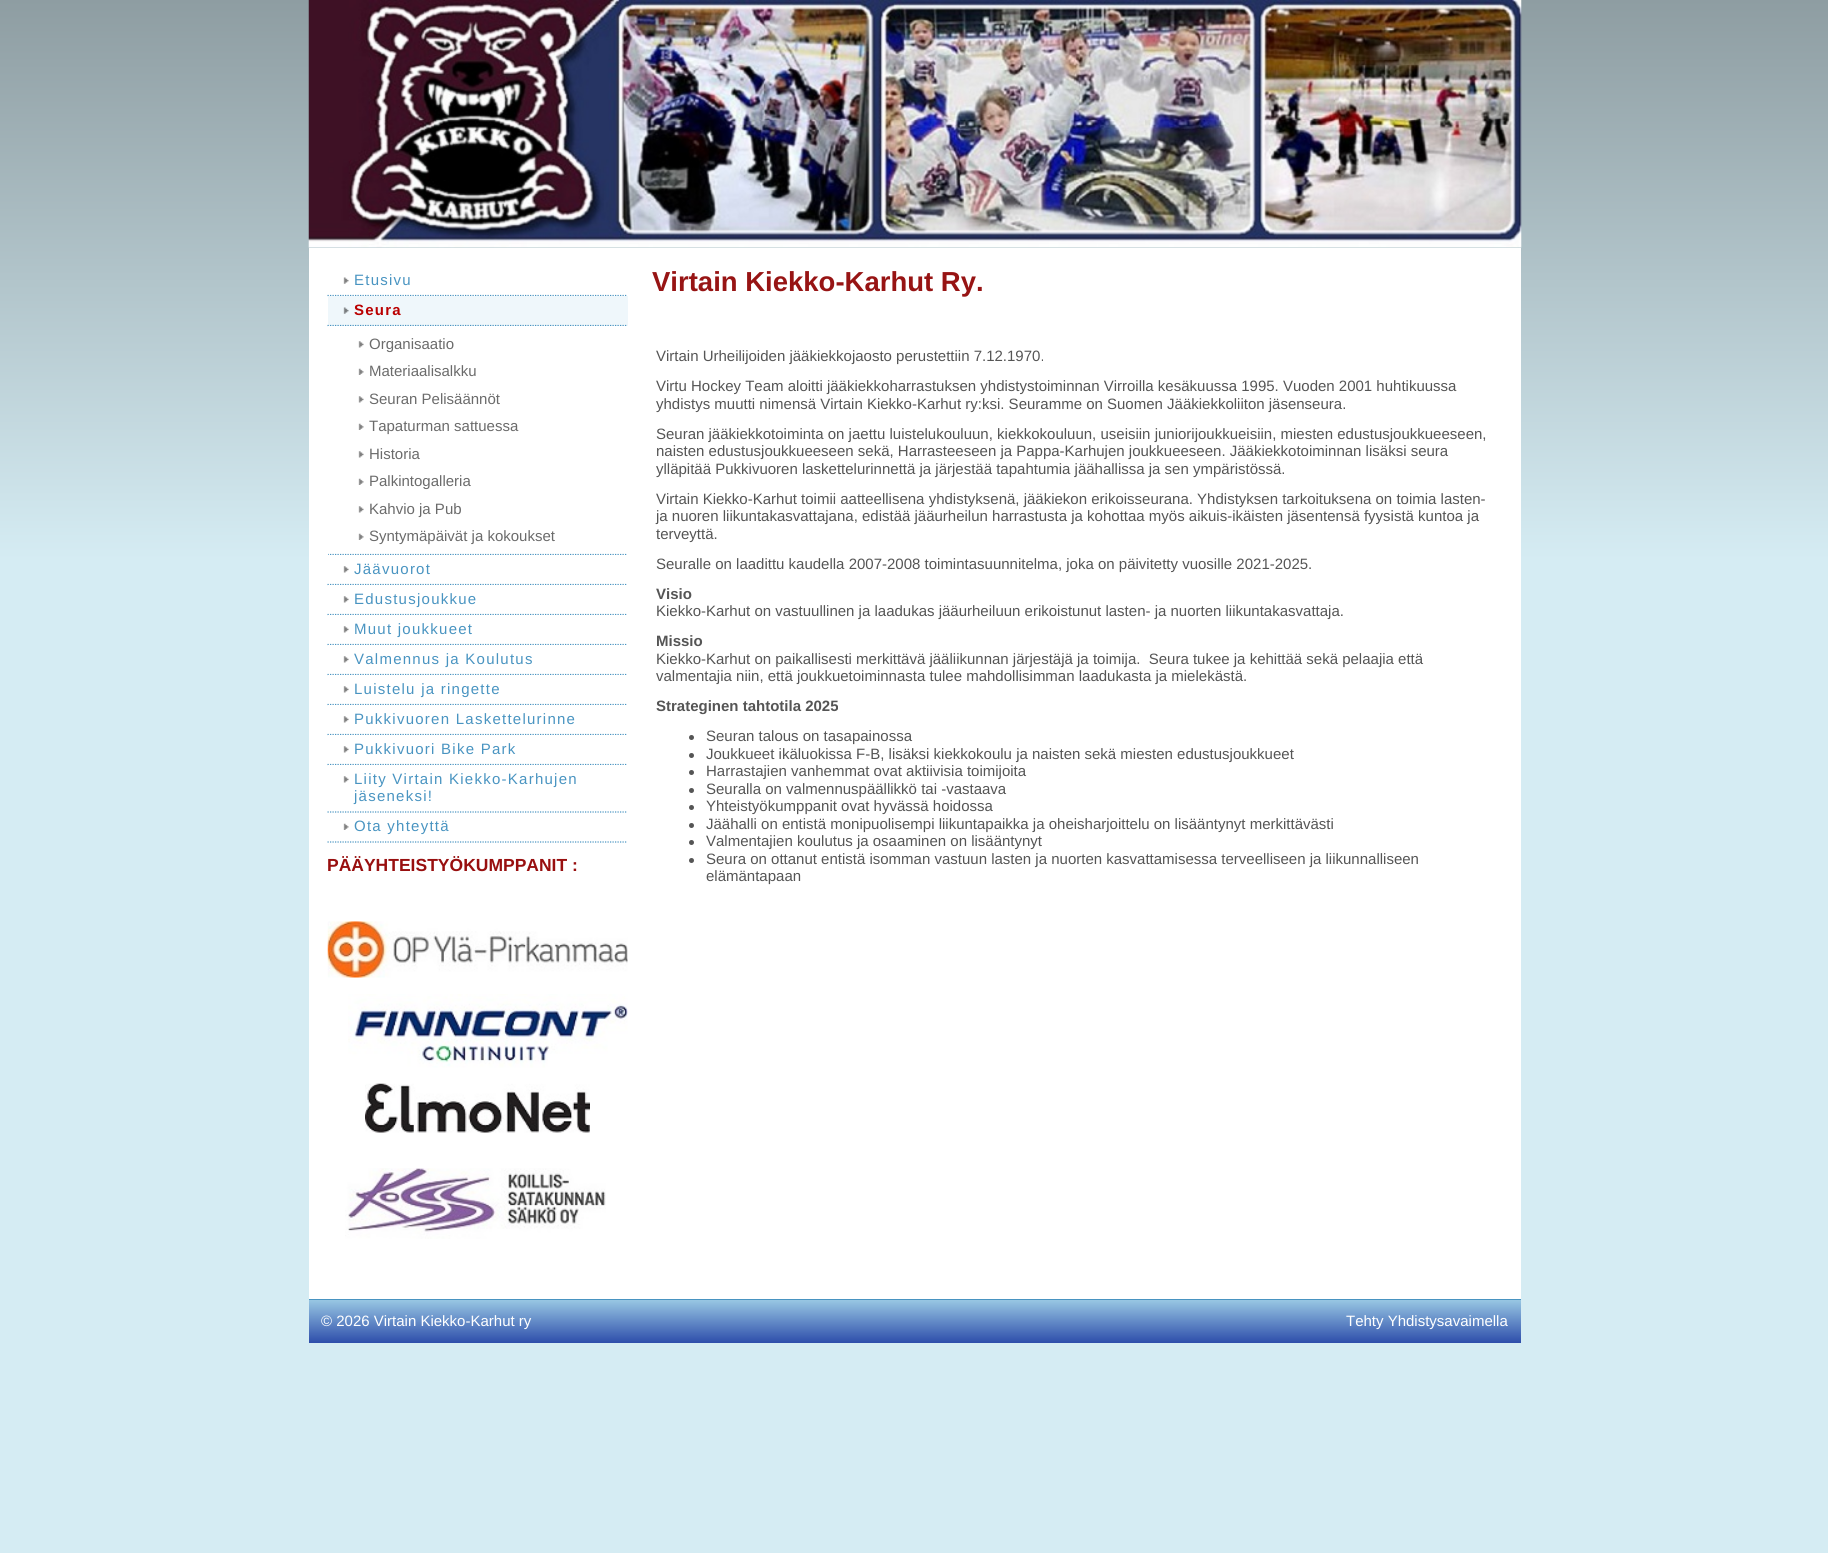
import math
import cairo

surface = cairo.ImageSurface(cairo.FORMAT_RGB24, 1828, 1553)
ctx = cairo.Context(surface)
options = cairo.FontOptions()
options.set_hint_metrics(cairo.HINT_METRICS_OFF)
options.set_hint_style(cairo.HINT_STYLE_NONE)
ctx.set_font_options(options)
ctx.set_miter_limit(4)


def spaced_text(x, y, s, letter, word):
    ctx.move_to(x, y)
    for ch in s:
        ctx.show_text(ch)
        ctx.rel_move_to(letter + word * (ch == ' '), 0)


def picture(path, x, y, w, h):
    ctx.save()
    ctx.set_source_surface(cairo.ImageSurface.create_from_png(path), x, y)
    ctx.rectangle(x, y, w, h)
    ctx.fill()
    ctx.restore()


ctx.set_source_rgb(1, 1, 1)
ctx.paint()
gradient = cairo.LinearGradient(914, 0, 914, 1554)
gradient.add_color_stop_rgba(0, 0.557, 0.616, 0.635, 1)
gradient.add_color_stop_rgba(0.36, 0.835, 0.925, 0.953, 1)
gradient.add_color_stop_rgba(1, 0.835, 0.925, 0.953, 1)
ctx.set_source(gradient)
ctx.rectangle(0, 0, 1828, 1553)
ctx.fill()
picture("img1.png", 308, 0, 1214, 248)
ctx.set_source_rgb(1, 1, 1)
ctx.rectangle(309, 248, 1212, 1051)
ctx.fill()
ctx.new_path()
ctx.move_to(327.5, 295.5)
ctx.line_to(627.5, 295.5)
ctx.set_source_rgb(0.286, 0.58, 0.757)
ctx.set_line_width(1.2)
ctx.set_dash([1.25, 1.25])
ctx.stroke()
picture("img2.png", 343, 277, 6, 7)
ctx.select_font_face("Liberation Sans")
ctx.set_font_size(15)
spaced_text(354, 285, "Etusivu", 1.25, 0)
ctx.set_source_rgb(0.937, 0.965, 0.984)
ctx.rectangle(328, 296, 300, 30)
ctx.fill()
ctx.new_path()
ctx.move_to(327.5, 325.5)
ctx.line_to(627.5, 325.5)
ctx.set_source_rgb(0.286, 0.58, 0.757)
ctx.stroke()
picture("img3.png", 343, 307, 6, 7)
ctx.select_font_face("Liberation Sans", cairo.FONT_SLANT_NORMAL, cairo.FONT_WEIGHT_BOLD)
ctx.set_source_rgb(0.729, 0, 0)
spaced_text(354, 315, "Seura", 1.25, 0)
ctx.set_source_rgb(1, 1, 1)
ctx.rectangle(328, 326, 299, 1)
ctx.fill()
picture("img4.png", 358, 341, 6, 7)
ctx.select_font_face("Liberation Sans")
ctx.set_source_rgb(0.42, 0.42, 0.42)
ctx.move_to(369, 349)
ctx.show_text("Organisaatio")
picture("img5.png", 358, 368, 6, 7)
ctx.move_to(369, 376)
ctx.show_text("Materiaalisalkku")
picture("img4.png", 358, 396, 6, 7)
ctx.move_to(369, 404)
ctx.show_text("Seuran Pelisäännöt")
picture("img5.png", 358, 423, 6, 7)
ctx.move_to(369, 431)
ctx.show_text("Tapaturman sattuessa")
picture("img4.png", 358, 451, 6, 7)
ctx.move_to(369, 459)
ctx.show_text("Historia")
picture("img5.png", 358, 478, 6, 7)
ctx.move_to(369, 486)
ctx.show_text("Palkintogalleria")
picture("img4.png", 358, 506, 6, 7)
ctx.move_to(369, 514)
ctx.show_text("Kahvio ja Pub")
ctx.save()
ctx.rectangle(328, 326, 300, 229)
ctx.clip()
ctx.new_path()
ctx.move_to(327.5, 554.5)
ctx.line_to(627.5, 554.5)
ctx.set_source_rgb(0.286, 0.58, 0.757)
ctx.stroke()
ctx.restore()
picture("img5.png", 358, 533, 6, 7)
ctx.move_to(369, 541)
ctx.show_text("Syntymäpäivät ja kokoukset")
ctx.new_path()
ctx.move_to(327.5, 584.5)
ctx.line_to(627.5, 584.5)
ctx.set_source_rgb(0.286, 0.58, 0.757)
ctx.stroke()
picture("img4.png", 343, 566, 6, 7)
spaced_text(354, 574, "Jäävuorot", 1.25, 0)
ctx.set_source_rgb(1, 1, 1)
ctx.rectangle(328, 585, 299, 1)
ctx.fill()
ctx.new_path()
ctx.move_to(327.5, 614.5)
ctx.line_to(627.5, 614.5)
ctx.set_source_rgb(0.286, 0.58, 0.757)
ctx.stroke()
picture("img4.png", 343, 596, 6, 7)
spaced_text(354, 604, "Edustusjoukkue", 1.25, 0)
ctx.set_source_rgb(1, 1, 1)
ctx.rectangle(328, 615, 299, 1)
ctx.fill()
ctx.new_path()
ctx.move_to(327.5, 644.5)
ctx.line_to(627.5, 644.5)
ctx.set_source_rgb(0.286, 0.58, 0.757)
ctx.stroke()
picture("img4.png", 343, 626, 6, 7)
spaced_text(354, 634, "Muut joukkueet", 1.25, 0)
ctx.set_source_rgb(1, 1, 1)
ctx.rectangle(328, 645, 299, 1)
ctx.fill()
ctx.new_path()
ctx.move_to(327.5, 674.5)
ctx.line_to(627.5, 674.5)
ctx.set_source_rgb(0.286, 0.58, 0.757)
ctx.stroke()
picture("img4.png", 343, 656, 6, 7)
spaced_text(354, 664, "Valmennus ja Koulutus", 1.25, 0)
ctx.set_source_rgb(1, 1, 1)
ctx.rectangle(328, 675, 299, 1)
ctx.fill()
ctx.new_path()
ctx.move_to(327.5, 704.5)
ctx.line_to(627.5, 704.5)
ctx.set_source_rgb(0.286, 0.58, 0.757)
ctx.stroke()
picture("img4.png", 343, 686, 6, 7)
spaced_text(354, 694, "Luistelu ja ringette", 1.25, 0)
ctx.set_source_rgb(1, 1, 1)
ctx.rectangle(328, 705, 299, 1)
ctx.fill()
ctx.new_path()
ctx.move_to(327.5, 734.5)
ctx.line_to(627.5, 734.5)
ctx.set_source_rgb(0.286, 0.58, 0.757)
ctx.stroke()
picture("img4.png", 343, 716, 6, 7)
spaced_text(354, 724, "Pukkivuoren Laskettelurinne", 1.25, 0)
ctx.set_source_rgb(1, 1, 1)
ctx.rectangle(328, 735, 299, 1)
ctx.fill()
ctx.new_path()
ctx.move_to(327.5, 764.5)
ctx.line_to(627.5, 764.5)
ctx.set_source_rgb(0.286, 0.58, 0.757)
ctx.stroke()
picture("img4.png", 343, 746, 6, 7)
spaced_text(354, 754, "Pukkivuori Bike Park", 1.25, 0)
ctx.set_source_rgb(1, 1, 1)
ctx.rectangle(328, 765, 299, 1)
ctx.fill()
ctx.new_path()
ctx.move_to(327.5, 812)
ctx.line_to(627.5, 812)
ctx.set_source_rgb(0.286, 0.58, 0.757)
ctx.stroke()
picture("img4.png", 343, 776, 6, 7)
spaced_text(354, 784, "Liity Virtain Kiekko-Karhujen", 1.25, 0)
spaced_text(354, 801, "jäseneksi!", 1.25, 0)
ctx.new_path()
ctx.move_to(327.5, 842)
ctx.line_to(627.5, 842)
ctx.stroke()
picture("img5.png", 343, 823, 6, 7)
spaced_text(354, 831, "Ota yhteyttä", 1.25, 0)
ctx.select_font_face("Liberation Sans", cairo.FONT_SLANT_NORMAL, cairo.FONT_WEIGHT_BOLD)
ctx.set_font_size(17.5)
ctx.set_source_rgb(0.596, 0.059, 0.059)
ctx.move_to(327, 871)
ctx.show_text("PÄÄYHTEISTYÖKUMPPANIT :")
picture("img6.png", 327, 921, 301, 57)
picture("img7.png", 348, 994, 280, 74)
picture("img8.png", 365, 1083, 225, 50)
picture("img9.png", 345, 1168, 261, 71)
ctx.set_font_size(27.5)
ctx.set_source_rgb(0.592, 0.082, 0.082)
ctx.move_to(652, 291)
ctx.show_text("Virtain Kiekko-Karhut Ry.")
ctx.select_font_face("Liberation Sans")
ctx.set_font_size(15)
ctx.set_source_rgb(0.333, 0.333, 0.333)
ctx.move_to(656, 361)
ctx.show_text("Virtain Urheilijoiden jääkiekkojaosto perustettiin 7.12.1970.")
ctx.move_to(656, 391)
ctx.show_text("Virtu Hockey Team aloitti jääkiekkoharrastuksen yhdistystoiminnan Virroilla kesäkuussa 1995. Vuoden 2001 huhtikuussa")
ctx.move_to(656, 409)
ctx.show_text("yhdistys muutti nimensä Virtain Kiekko-Karhut ry:ksi. Seuramme on Suomen Jääkiekkoliiton jäsenseura.")
ctx.move_to(656, 439)
ctx.show_text("Seuran jääkiekkotoiminta on jaettu luistelukouluun, kiekkokouluun, useisiin juniorijoukkueisiin, miesten edustusjoukkueeseen,")
ctx.move_to(656, 456)
ctx.show_text("naisten edustusjoukkueeseen sekä, Harrasteeseen ja Pappa-Karhujen joukkueeseen. Jääkiekkotoiminnan lisäksi seura")
ctx.move_to(656, 474)
ctx.show_text("ylläpitää Pukkivuoren laskettelurinnettä ja järjestää tapahtumia jäähallissa ja sen ympäristössä.")
ctx.move_to(656, 504)
ctx.show_text("Virtain Kiekko-Karhut toimii aatteellisena yhdistyksenä, jääkiekon erikoisseurana. Yhdistyksen tarkoituksena on toimia lasten-")
ctx.move_to(656, 521)
ctx.show_text("ja nuoren liikuntakasvattajana, edistää jääurheilun harrastusta ja kohottaa myös aikuis-ikäisten jäsentensä fyysistä kuntoa ja")
ctx.move_to(656, 539)
ctx.show_text("terveyttä.")
ctx.move_to(656, 569)
ctx.show_text("Seuralle on laadittu kaudella 2007-2008 toimintasuunnitelma, joka on päivitetty vuosille 2021-2025.")
ctx.select_font_face("Liberation Sans", cairo.FONT_SLANT_NORMAL, cairo.FONT_WEIGHT_BOLD)
ctx.move_to(656, 599)
ctx.show_text("Visio")
ctx.select_font_face("Liberation Sans")
ctx.move_to(656, 616)
ctx.show_text("Kiekko-Karhut on vastuullinen ja laadukas jääurheiluun erikoistunut lasten- ja nuorten liikuntakasvattaja.")
ctx.select_font_face("Liberation Sans", cairo.FONT_SLANT_NORMAL, cairo.FONT_WEIGHT_BOLD)
ctx.move_to(656, 646)
ctx.show_text("Missio")
ctx.select_font_face("Liberation Sans")
ctx.move_to(656, 664)
ctx.show_text("Kiekko-Karhut on paikallisesti merkittävä jääliikunnan järjestäjä ja toimija.  Seura tukee ja kehittää sekä pelaajia että")
ctx.move_to(656, 681)
ctx.show_text("valmentajia niin, että joukkuetoiminnasta tulee mahdollisimman laadukasta ja mielekästä.")
ctx.select_font_face("Liberation Sans", cairo.FONT_SLANT_NORMAL, cairo.FONT_WEIGHT_BOLD)
ctx.move_to(656, 711)
ctx.show_text("Strateginen tahtotila 2025")
ctx.new_path()
ctx.arc(691.5, 737.5, 2.5, 0, 2 * math.pi)
ctx.fill()
ctx.select_font_face("Liberation Sans")
ctx.move_to(706, 741)
ctx.show_text("Seuran talous on tasapainossa")
ctx.new_path()
ctx.arc(691.5, 755.5, 2.5, 0, 2 * math.pi)
ctx.fill()
ctx.move_to(706, 759)
ctx.show_text("Joukkueet ikäluokissa F-B, lisäksi kiekkokoulu ja naisten sekä miesten edustusjoukkueet")
ctx.new_path()
ctx.arc(691.5, 772.5, 2.5, 0, 2 * math.pi)
ctx.fill()
ctx.move_to(706, 776)
ctx.show_text("Harrastajien vanhemmat ovat aktiivisia toimijoita")
ctx.new_path()
ctx.arc(691.5, 790.5, 2.5, 0, 2 * math.pi)
ctx.fill()
ctx.move_to(706, 794)
ctx.show_text("Seuralla on valmennuspäällikkö tai -vastaava")
ctx.new_path()
ctx.arc(691.5, 807.5, 2.5, 0, 2 * math.pi)
ctx.fill()
ctx.move_to(706, 811)
ctx.show_text("Yhteistyökumppanit ovat hyvässä hoidossa")
ctx.new_path()
ctx.arc(691.5, 825.5, 2.5, 0, 2 * math.pi)
ctx.fill()
ctx.move_to(706, 829)
ctx.show_text("Jäähalli on entistä monipuolisempi liikuntapaikka ja oheisharjoittelu on lisääntynyt merkittävästi")
ctx.new_path()
ctx.arc(691.5, 842.5, 2.5, 0, 2 * math.pi)
ctx.fill()
ctx.move_to(706, 846)
ctx.show_text("Valmentajien koulutus ja osaaminen on lisääntynyt")
ctx.new_path()
ctx.arc(691.5, 860.5, 2.5, 0, 2 * math.pi)
ctx.fill()
ctx.move_to(706, 864)
ctx.show_text("Seura on ottanut entistä isomman vastuun lasten ja nuorten kasvattamisessa terveelliseen ja liikunnalliseen")
ctx.move_to(706, 881)
ctx.show_text("elämäntapaan")
gradient = cairo.LinearGradient(915, 1300, 915, 1351)
gradient.add_color_stop_rgba(0, 0.596, 0.78, 0.89, 1)
gradient.add_color_stop_rgba(1, 0.102, 0.216, 0.627, 1)
ctx.set_source(gradient)
ctx.rectangle(309, 1300, 1212, 43)
ctx.fill()
ctx.set_source_rgb(0.286, 0.58, 0.757)
ctx.rectangle(309, 1299, 1212, 1)
ctx.fill()
ctx.set_source_rgb(1, 1, 1)
ctx.move_to(321, 1326)
ctx.show_text("© 2026 Virtain Kiekko-Karhut ry")
ctx.move_to(1346, 1326)
ctx.show_text("Tehty Yhdistysavaimella")
surface.write_to_png("page.png")
